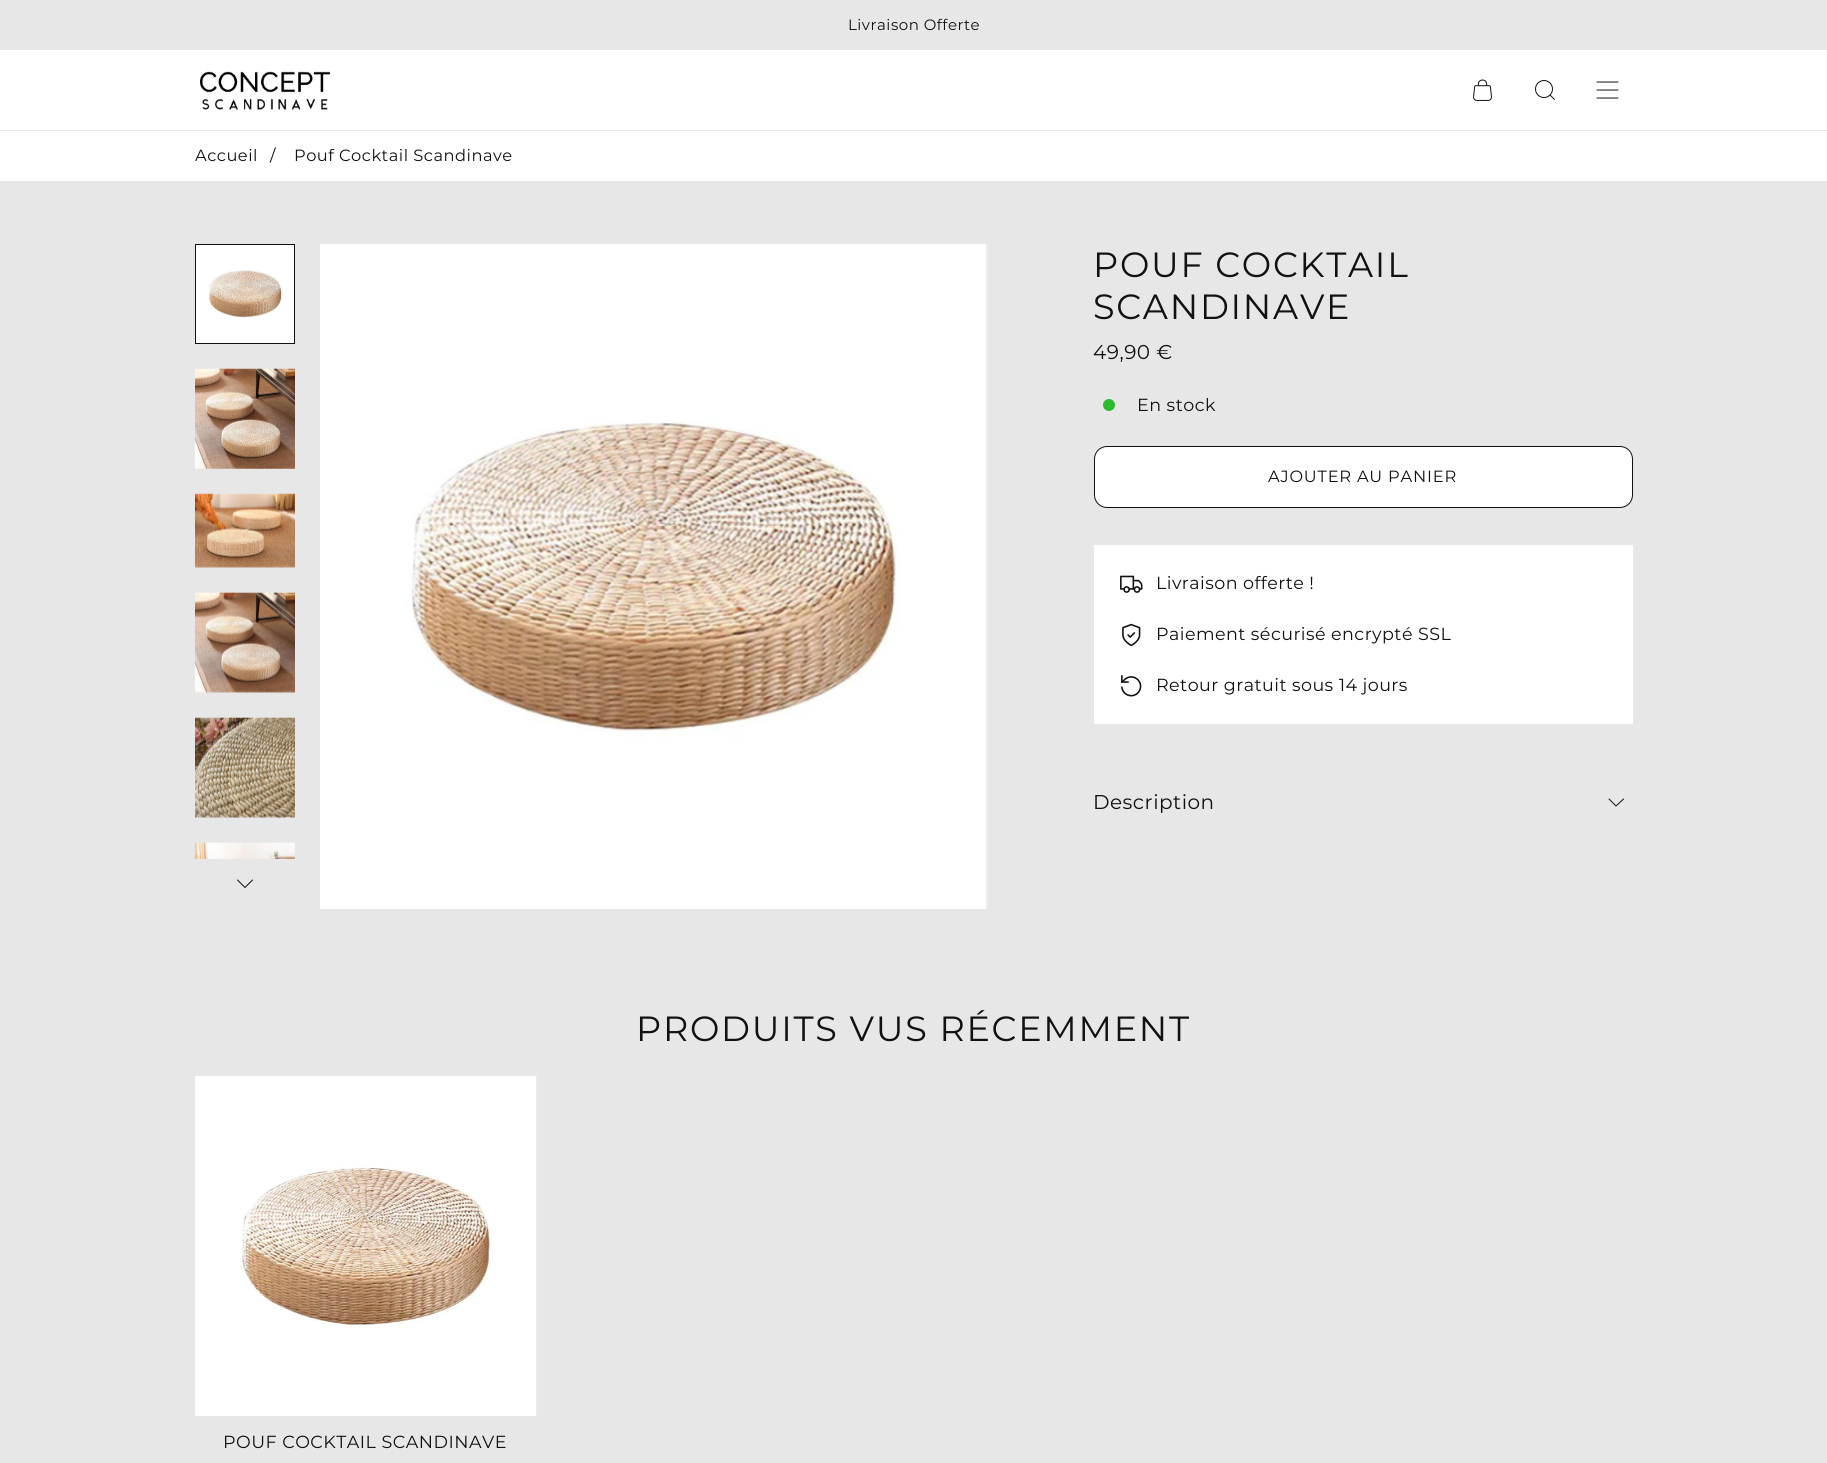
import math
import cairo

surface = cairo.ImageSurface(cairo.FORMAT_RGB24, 1827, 1463)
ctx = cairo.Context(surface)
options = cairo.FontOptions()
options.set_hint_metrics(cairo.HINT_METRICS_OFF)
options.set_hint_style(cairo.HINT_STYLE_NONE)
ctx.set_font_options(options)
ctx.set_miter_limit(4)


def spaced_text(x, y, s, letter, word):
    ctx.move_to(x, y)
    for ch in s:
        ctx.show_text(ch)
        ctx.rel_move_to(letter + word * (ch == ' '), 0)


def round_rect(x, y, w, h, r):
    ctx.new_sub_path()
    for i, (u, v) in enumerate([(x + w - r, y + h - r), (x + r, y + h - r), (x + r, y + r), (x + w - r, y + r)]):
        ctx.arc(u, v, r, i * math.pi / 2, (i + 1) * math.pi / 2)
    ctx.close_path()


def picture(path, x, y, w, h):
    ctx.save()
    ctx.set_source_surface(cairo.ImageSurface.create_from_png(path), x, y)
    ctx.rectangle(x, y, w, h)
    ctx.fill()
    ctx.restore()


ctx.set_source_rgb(0.906, 0.906, 0.906)
ctx.paint()
ctx.select_font_face("Montserrat")
ctx.set_font_size(15)
ctx.set_source_rgb(0.067, 0.067, 0.067)
spaced_text(848, 30, "Livraison Offerte", 0.5, 0)
ctx.set_source_rgb(1, 1, 1)
ctx.rectangle(0, 50, 1827, 80)
ctx.fill()
picture("img1.png", 200, 71, 131, 39)
picture("img2.png", 1473, 79, 19, 22)
ctx.arc(1544, 89, 8.5, 0, 2 * math.pi)
ctx.set_source_rgb(0.067, 0.067, 0.067)
ctx.set_line_width(1)
ctx.stroke()
ctx.new_path()
ctx.move_to(1554.5, 99.5)
ctx.line_to(1550, 95)
ctx.set_line_cap(cairo.LINE_CAP_ROUND)
ctx.set_line_join(cairo.LINE_JOIN_ROUND)
ctx.stroke()
ctx.new_path()
ctx.move_to(1597, 82)
ctx.line_to(1618, 82)
ctx.close_path()
ctx.move_to(1597, 98)
ctx.line_to(1618, 98)
ctx.close_path()
ctx.move_to(1597, 90)
ctx.line_to(1618, 90)
ctx.close_path()
ctx.stroke()
ctx.set_source_rgb(1, 1, 1)
ctx.rectangle(0, 131, 1827, 50)
ctx.fill()
ctx.set_font_size(16.25)
ctx.set_source_rgb(0.067, 0.067, 0.067)
spaced_text(195, 161, "Accueil", 0.5, 0)
spaced_text(270, 161, "/", 0.5, 0)
spaced_text(294, 161, "Pouf Cocktail Scandinave", 0.5, 0)
picture("img3.png", 196, 245, 98, 98)
ctx.rectangle(195.5, 244.5, 99, 99)
ctx.set_line_cap(cairo.LINE_CAP_BUTT)
ctx.set_line_join(cairo.LINE_JOIN_MITER)
ctx.stroke()
picture("img4.png", 195, 368, 100, 101)
picture("img5.png", 195, 493, 100, 75)
picture("img6.png", 195, 592, 100, 101)
picture("img7.png", 195, 717, 100, 101)
picture("img8.png", 195, 842, 100, 17)
picture("img9.png", 320, 244, 667, 665)
ctx.new_path()
ctx.move_to(237.5, 880)
ctx.line_to(245, 887.5)
ctx.line_to(252.5, 880)
ctx.set_line_cap(cairo.LINE_CAP_ROUND)
ctx.set_line_join(cairo.LINE_JOIN_ROUND)
ctx.stroke()
ctx.set_font_size(35)
spaced_text(1093, 277, "POUF COCKTAIL", 1.75, 0)
spaced_text(1093, 319, "SCANDINAVE", 1.75, 0)
ctx.set_font_size(20)
spaced_text(1093, 359, "49,90 €", 0.5, 0)
ctx.set_source_rgb(0.173, 0.733, 0.184)
ctx.new_path()
ctx.arc(1109, 405, 6, 0, 2 * math.pi)
ctx.fill()
ctx.set_font_size(17.5)
ctx.set_source_rgb(0.067, 0.067, 0.067)
spaced_text(1137, 411, "En stock", 0.5, 0)
ctx.set_source_rgb(1, 1, 1)
round_rect(1094.5, 446.5, 538, 61, 12.5)
ctx.fill_preserve()
ctx.set_source_rgb(0.067, 0.067, 0.067)
ctx.set_line_cap(cairo.LINE_CAP_BUTT)
ctx.set_line_join(cairo.LINE_JOIN_MITER)
ctx.stroke()
ctx.set_font_size(16.25)
spaced_text(1268, 482, "AJOUTER AU PANIER", 0.8, 0)
ctx.set_source_rgb(1, 1, 1)
ctx.rectangle(1094, 545, 539, 179)
ctx.fill()
picture("img10.png", 1120, 575, 23, 18)
ctx.set_font_size(17.5)
ctx.set_source_rgb(0.067, 0.067, 0.067)
spaced_text(1156, 589, "Livraison offerte !", 0.45, 0)
picture("img11.png", 1122, 623, 19, 24)
spaced_text(1156, 640, "Paiement sécurisé encrypté SSL", 0.45, 0)
picture("img12.png", 1121, 675, 21, 22)
spaced_text(1156, 691, "Retour gratuit sous 14 jours", 0.45, 0)
ctx.set_font_size(20)
spaced_text(1093, 809, "Description", 0.5, 0)
ctx.new_path()
ctx.move_to(1609, 799)
ctx.line_to(1616, 806)
ctx.line_to(1623.5, 799)
ctx.set_line_cap(cairo.LINE_CAP_ROUND)
ctx.set_line_join(cairo.LINE_JOIN_ROUND)
ctx.stroke()
ctx.set_font_size(35)
spaced_text(636, 1041, "PRODUITS VUS RÉCEMMENT", 1.75, 0)
picture("img13.png", 195, 1076, 342, 340)
ctx.set_font_size(17.5)
spaced_text(223, 1448, "POUF COCKTAIL SCANDINAVE", 0.5, 0)
surface.write_to_png("page.png")
